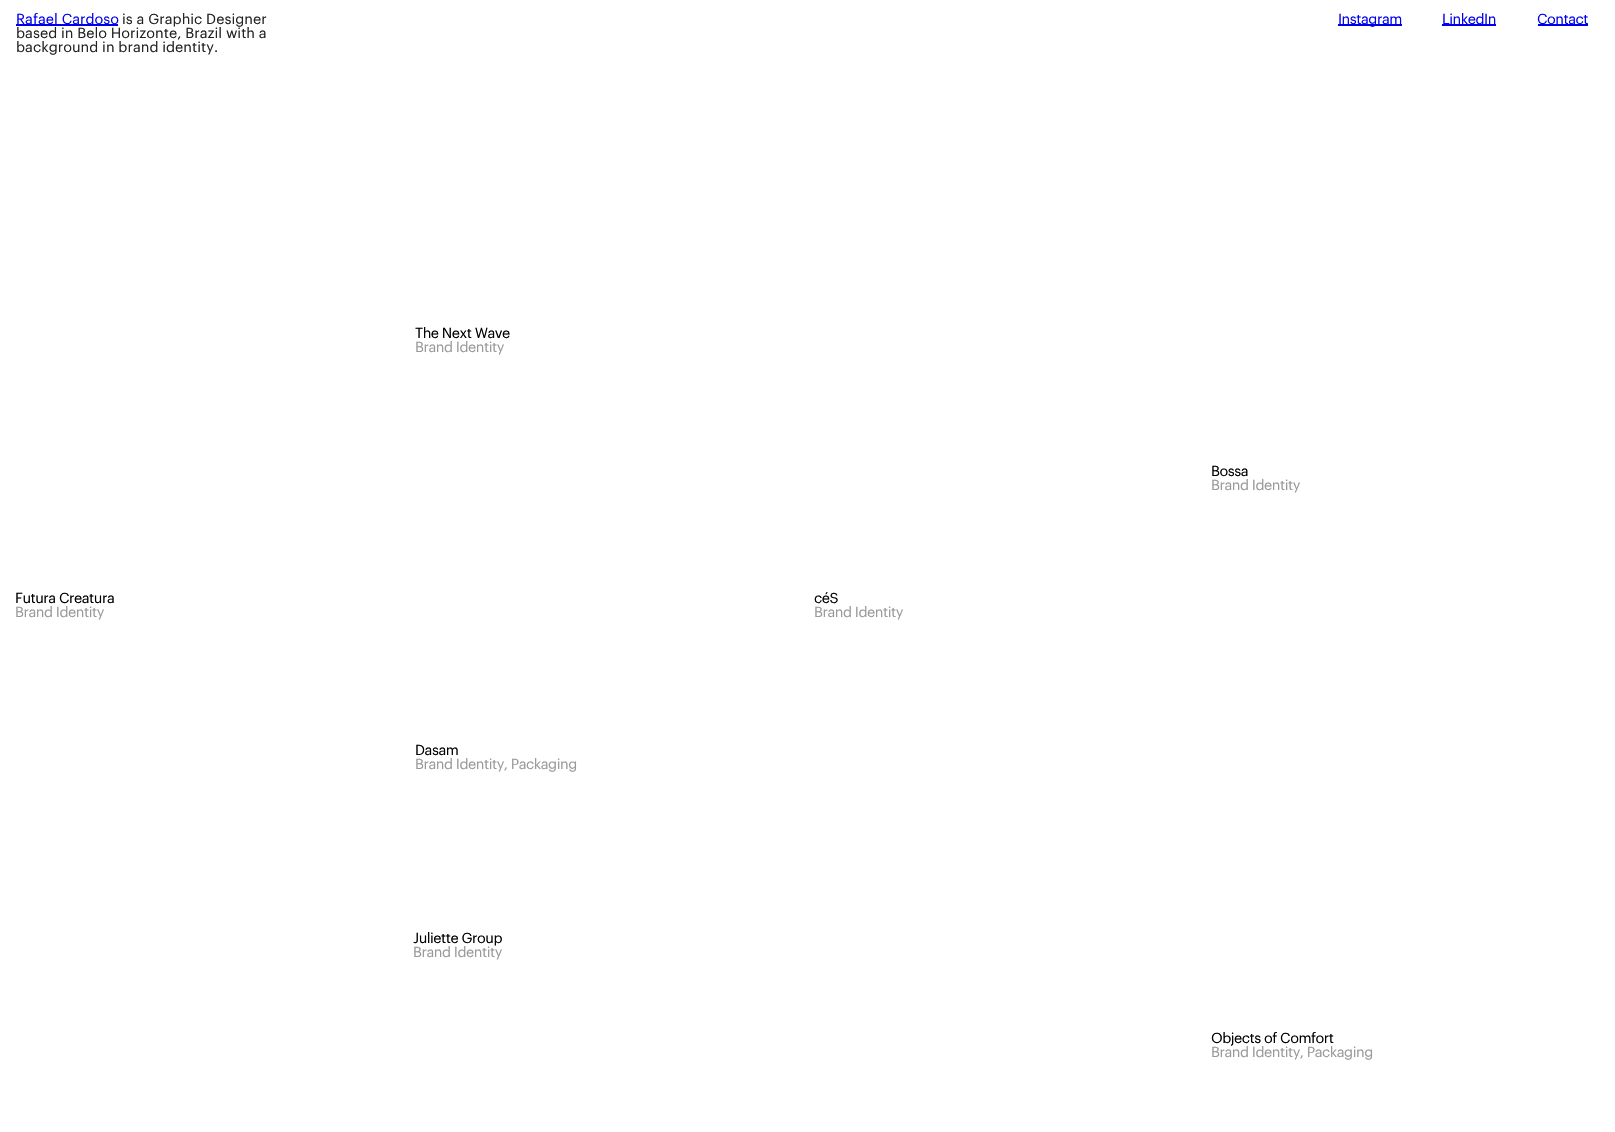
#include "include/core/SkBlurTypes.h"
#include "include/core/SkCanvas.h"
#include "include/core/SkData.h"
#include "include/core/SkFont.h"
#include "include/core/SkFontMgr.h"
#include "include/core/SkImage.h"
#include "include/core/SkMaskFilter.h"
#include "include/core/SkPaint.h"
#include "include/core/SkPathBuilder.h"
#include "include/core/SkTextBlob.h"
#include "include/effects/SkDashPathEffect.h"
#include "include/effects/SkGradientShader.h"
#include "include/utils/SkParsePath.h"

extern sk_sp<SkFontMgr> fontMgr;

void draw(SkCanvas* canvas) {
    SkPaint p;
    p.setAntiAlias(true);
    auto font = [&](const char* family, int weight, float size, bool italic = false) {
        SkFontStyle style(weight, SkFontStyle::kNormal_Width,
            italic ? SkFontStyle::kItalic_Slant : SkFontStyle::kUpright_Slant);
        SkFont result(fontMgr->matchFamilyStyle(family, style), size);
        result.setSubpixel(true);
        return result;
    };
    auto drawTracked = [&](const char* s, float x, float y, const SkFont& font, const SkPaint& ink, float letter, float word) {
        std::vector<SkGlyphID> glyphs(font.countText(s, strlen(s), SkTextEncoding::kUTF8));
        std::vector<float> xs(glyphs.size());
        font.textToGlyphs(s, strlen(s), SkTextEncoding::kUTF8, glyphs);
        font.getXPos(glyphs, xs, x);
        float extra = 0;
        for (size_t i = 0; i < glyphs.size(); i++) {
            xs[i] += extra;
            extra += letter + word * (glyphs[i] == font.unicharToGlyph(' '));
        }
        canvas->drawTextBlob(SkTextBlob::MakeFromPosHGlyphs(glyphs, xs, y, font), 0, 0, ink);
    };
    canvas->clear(0xFFFFFFFF);
    p.setColor(0xFF0000EE);
    canvas->drawRect(SkRect::MakeLTRB(16, 24, 118, 26), p);
    auto font1 = font("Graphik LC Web", 400, 14.2f);
    canvas->drawString("Rafael Cardoso", 16, 24, font1, p);
    p.setColor(0xFF222222);
    {
        const struct { const char* s; float x, y; } items[] = {
            {"is a Graphic Designer", 122, 24},
            {"based in Belo Horizonte, Brazil with a", 16, 38},
            {"background in brand identity.", 16, 52},
        };
        for (auto [s, x, y] : items) {
            canvas->drawString(s, x, y, font1, p);
        }
    }
    p.setColor(0xFF0000EE);
    canvas->drawRect(SkRect::MakeLTRB(1338, 24, 1402, 26), p);
    drawTracked("Instagram", 1338, 24, font1, p, -0.5f, 0);
    canvas->drawRect(SkRect::MakeLTRB(1442, 24, 1496, 26), p);
    drawTracked("LinkedIn", 1442, 24, font1, p, -0.5f, 0);
    canvas->drawRect(SkRect::MakeLTRB(1538, 24, 1588, 26), p);
    drawTracked("Contact", 1537, 24, font1, p, -0.5f, 0);
    p.setColor(0xFF000000);
    drawTracked("The Next Wave", 415, 338, font1, p, -0.5f, 0);
    p.setColor(0xFF999999);
    drawTracked("Brand Identity", 415, 352, font1, p, -0.5f, 0);
    p.setColor(0xFF000000);
    drawTracked("Bossa", 1211, 476, font1, p, -0.5f, 0);
    p.setColor(0xFF999999);
    drawTracked("Brand Identity", 1211, 490, font1, p, -0.5f, 0);
    p.setColor(0xFF000000);
    drawTracked("Futura Creatura", 15, 603, font1, p, -0.5f, 0);
    p.setColor(0xFF999999);
    drawTracked("Brand Identity", 15, 617, font1, p, -0.5f, 0);
    p.setColor(0xFF000000);
    drawTracked("céS", 814, 603, font1, p, -0.5f, 0);
    p.setColor(0xFF999999);
    drawTracked("Brand Identity", 814, 617, font1, p, -0.5f, 0);
    p.setColor(0xFF000000);
    drawTracked("Dasam", 415, 755, font1, p, -0.5f, 0);
    p.setColor(0xFF999999);
    drawTracked("Brand Identity, Packaging", 415, 769, font1, p, -0.5f, 0);
    p.setColor(0xFF000000);
    drawTracked("Juliette Group", 413, 943, font1, p, -0.5f, 0);
    p.setColor(0xFF999999);
    drawTracked("Brand Identity", 413, 957, font1, p, -0.5f, 0);
    p.setColor(0xFF000000);
    drawTracked("Objects of Comfort", 1211, 1043, font1, p, -0.5f, 0);
    p.setColor(0xFF999999);
    drawTracked("Brand Identity, Packaging", 1211, 1057, font1, p, -0.5f, 0);
}
